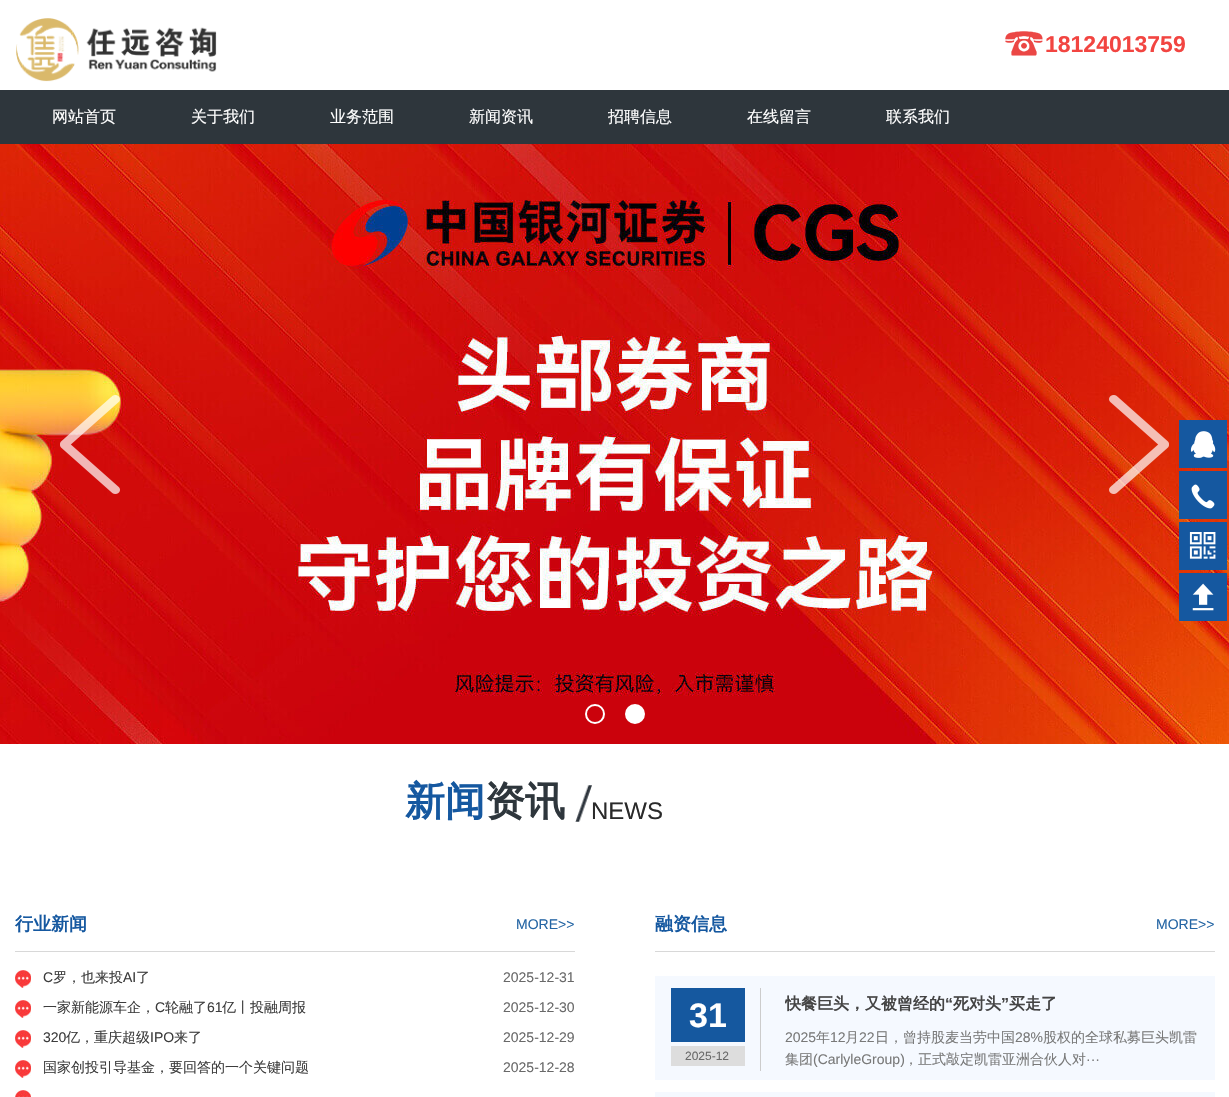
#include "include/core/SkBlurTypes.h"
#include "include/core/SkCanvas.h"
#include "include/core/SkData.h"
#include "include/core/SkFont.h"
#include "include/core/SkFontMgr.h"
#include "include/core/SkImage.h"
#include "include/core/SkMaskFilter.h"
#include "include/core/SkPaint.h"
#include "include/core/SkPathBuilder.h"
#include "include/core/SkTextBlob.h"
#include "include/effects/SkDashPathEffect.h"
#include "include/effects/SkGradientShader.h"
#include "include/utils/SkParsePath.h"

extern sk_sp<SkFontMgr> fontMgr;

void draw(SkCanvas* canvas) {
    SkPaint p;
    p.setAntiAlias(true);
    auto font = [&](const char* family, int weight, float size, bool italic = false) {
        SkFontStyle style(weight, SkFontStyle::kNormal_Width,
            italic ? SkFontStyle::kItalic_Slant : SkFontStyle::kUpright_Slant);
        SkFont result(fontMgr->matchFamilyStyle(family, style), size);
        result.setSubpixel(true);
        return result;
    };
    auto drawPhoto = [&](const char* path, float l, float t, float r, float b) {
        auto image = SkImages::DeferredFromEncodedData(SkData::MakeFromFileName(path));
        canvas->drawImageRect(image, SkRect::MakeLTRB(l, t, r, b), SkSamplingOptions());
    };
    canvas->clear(0xFFFFFFFF);
    drawPhoto("media/1.png", 16, 18, 217, 82);
    drawPhoto("media/2.png", 1005, 31, 1043, 56);
    auto font1 = font("Liberation Sans", 700, 23);
    p.setColor(0xFFF24541);
    canvas->drawString("18124013759", 1045, 52, font1, p);
    p.setColor(0xFF2E363C);
    canvas->drawRect(SkRect::MakeLTRB(0, 90, 1229, 144), p);
    auto font2 = font("WenQuanYi Zen Hei", 500, 16);
    p.setColor(0xFFFFFFFF);
    {
        const struct { const char* s; float x, y; } items[] = {
            {"网站首页", 52, 122},
            {"关于我们", 191, 122},
            {"业务范围", 330, 122},
            {"新闻资讯", 469, 122},
            {"招聘信息", 608, 122},
            {"在线留言", 747, 122},
            {"联系我们", 886, 122},
        };
        for (auto [s, x, y] : items) {
            canvas->drawString(s, x, y, font2, p);
        }
    }
    drawPhoto("media/3.png", 0, 144, 1229, 744);
    drawPhoto("media/4.png", 60, 395, 120, 494);
    drawPhoto("media/5.png", 1109, 395, 1169, 494);
    p.setStyle(SkPaint::kStroke_Style);
    p.setStrokeWidth(2);
    canvas->drawCircle(595, 714, 9, p);
    p.setStyle(SkPaint::kFill_Style);
    canvas->drawCircle(635, 714, 9, p);
    p.setStyle(SkPaint::kStroke_Style);
    canvas->drawCircle(635, 714, 9, p);
    p.setStyle(SkPaint::kFill_Style);
    p.setColor(0xFF1558A0);
    canvas->drawRect(SkRect::MakeLTRB(1179, 420, 1227, 468), p);
    drawPhoto("media/6.png", 1190, 431, 1216, 458);
    canvas->drawRect(SkRect::MakeLTRB(1179, 471, 1227, 519), p);
    drawPhoto("media/7.png", 1191, 484, 1215, 509);
    canvas->drawRect(SkRect::MakeLTRB(1179, 522, 1227, 570), p);
    drawPhoto("media/8.png", 1189, 532, 1216, 559);
    canvas->drawRect(SkRect::MakeLTRB(1179, 573, 1227, 621), p);
    drawPhoto("media/9.png", 1192, 583, 1214, 611);
    auto font3 = font("WenQuanYi Zen Hei", 700, 40);
    canvas->drawString("新闻", 405, 815, font3, p);
    p.setColor(0xFF2E363C);
    canvas->drawString("资讯", 485, 815, font3, p);
    drawPhoto("media/10.png", 575, 785, 592, 822);
    auto font4 = font("Liberation Sans", 400, 24);
    p.setColor(0xFF2A2A2A);
    canvas->drawString("NEWS", 591, 819, font4, p);
    p.setColor(0xFFD8D8D8);
    canvas->drawRect(SkRect::MakeLTRB(15, 951, 575, 952), p);
    auto font5 = font("WenQuanYi Zen Hei", 700, 18);
    p.setColor(0xFF1558A0);
    canvas->drawString("行业新闻", 15, 930, font5, p);
    auto font6 = font("Liberation Sans", 400, 14);
    p.setColor(0xFF2465A4);
    canvas->drawString("MORE>>", 516, 929, font6, p);
    drawPhoto("media/11.png", 15, 970, 31, 988);
    p.setColor(0xFF3D3D3D);
    canvas->drawString("C", 43, 982, font6, p);
    auto font7 = font("WenQuanYi Zen Hei", 500, 14);
    canvas->drawString("罗，也来投", 53, 982, font7, p);
    canvas->drawString("AI", 123, 982, font6, p);
    canvas->drawString("了", 136, 982, font7, p);
    p.setColor(0xFF696969);
    canvas->drawString("2025-12-31", 503, 982, font6, p);
    drawPhoto("media/11.png", 15, 1000, 31, 1018);
    p.setColor(0xFF3D3D3D);
    canvas->drawString("一家新能源车企，", 43, 1012, font7, p);
    canvas->drawString("C", 155, 1012, font6, p);
    canvas->drawString("轮融了", 165, 1012, font7, p);
    canvas->drawString("61", 207, 1012, font6, p);
    canvas->drawString("亿丨投融周报", 222, 1012, font7, p);
    p.setColor(0xFF696969);
    canvas->drawString("2025-12-30", 503, 1012, font6, p);
    drawPhoto("media/11.png", 15, 1030, 31, 1048);
    p.setColor(0xFF3D3D3D);
    canvas->drawString("320", 43, 1042, font6, p);
    canvas->drawString("亿，重庆超级", 66, 1042, font7, p);
    canvas->drawString("IPO", 150, 1042, font6, p);
    canvas->drawString("来了", 174, 1042, font7, p);
    p.setColor(0xFF696969);
    canvas->drawString("2025-12-29", 503, 1042, font6, p);
    drawPhoto("media/11.png", 15, 1060, 31, 1078);
    p.setColor(0xFF3D3D3D);
    canvas->drawString("国家创投引导基金，要回答的一个关键问题", 43, 1072, font7, p);
    p.setColor(0xFF696969);
    canvas->drawString("2025-12-28", 503, 1072, font6, p);
    drawPhoto("media/12.png", 15, 1090, 31, 1097);
    p.setColor(0xFFD8D8D8);
    canvas->drawRect(SkRect::MakeLTRB(655, 951, 1215, 952), p);
    p.setColor(0xFF1558A0);
    canvas->drawString("融资信息", 655, 930, font5, p);
    p.setColor(0xFF2465A4);
    canvas->drawString("MORE>>", 1156, 929, font6, p);
    p.setColor(0xFFF5F9FF);
    canvas->drawRect(SkRect::MakeLTRB(655, 976, 1215, 1080), p);
    p.setColor(0xFF15589F);
    canvas->drawRect(SkRect::MakeLTRB(671, 988, 745, 1042), p);
    auto font8 = font("Liberation Sans", 700, 34);
    p.setColor(0xFFFFFFFF);
    canvas->drawString("31", 689, 1027, font8, p);
    p.setColor(0xFFDDDDDD);
    canvas->drawRect(SkRect::MakeLTRB(671, 1046, 745, 1066), p);
    auto font9 = font("Liberation Sans", 400, 12);
    p.setColor(0xFF696969);
    canvas->drawString("2025-12", 685, 1060, font9, p);
    p.setColor(0xFFCCCCCC);
    canvas->drawRect(SkRect::MakeLTRB(760, 988, 761, 1071), p);
    canvas->save();
    canvas->clipRect(SkRect::MakeLTRB(785, 988, 1201, 1020));
    auto font10 = font("WenQuanYi Zen Hei", 700, 16);
    p.setColor(0xFF444444);
    canvas->drawString("快餐巨头，又被曾经的", 785, 1009, font10, p);
    canvas->restore();
    auto font11 = font("Liberation Sans", 700, 16);
    canvas->drawString("“", 945, 1009, font11, p);
    canvas->drawString("死对头", 953, 1009, font10, p);
    canvas->drawString("”", 1001, 1009, font11, p);
    canvas->drawString("买走了", 1009, 1009, font10, p);
    p.setColor(0xFF797979);
    canvas->drawString("2025", 785, 1042, font6, p);
    canvas->drawString("年", 816, 1042, font7, p);
    canvas->drawString("12", 830, 1042, font6, p);
    canvas->drawString("月", 845, 1042, font7, p);
    canvas->drawString("22", 859, 1042, font6, p);
    canvas->drawString("日，曾持股麦当劳中国", 875, 1042, font7, p);
    canvas->drawString("28%", 1015, 1042, font6, p);
    canvas->drawString("股权的全球私募巨头凯雷", 1043, 1042, font7, p);
    canvas->drawString("集团", 785, 1064, font7, p);
    canvas->drawString("(CarlyleGroup)", 813, 1064, font6, p);
    canvas->drawString("，正式敲定凯雷亚洲合伙人对", 904, 1064, font7, p);
    canvas->drawString("···", 1086, 1064, font6, p);
    p.setColor(0xFFF5F9FF);
    canvas->drawRect(SkRect::MakeLTRB(655, 1092, 1215, 1097), p);
}
